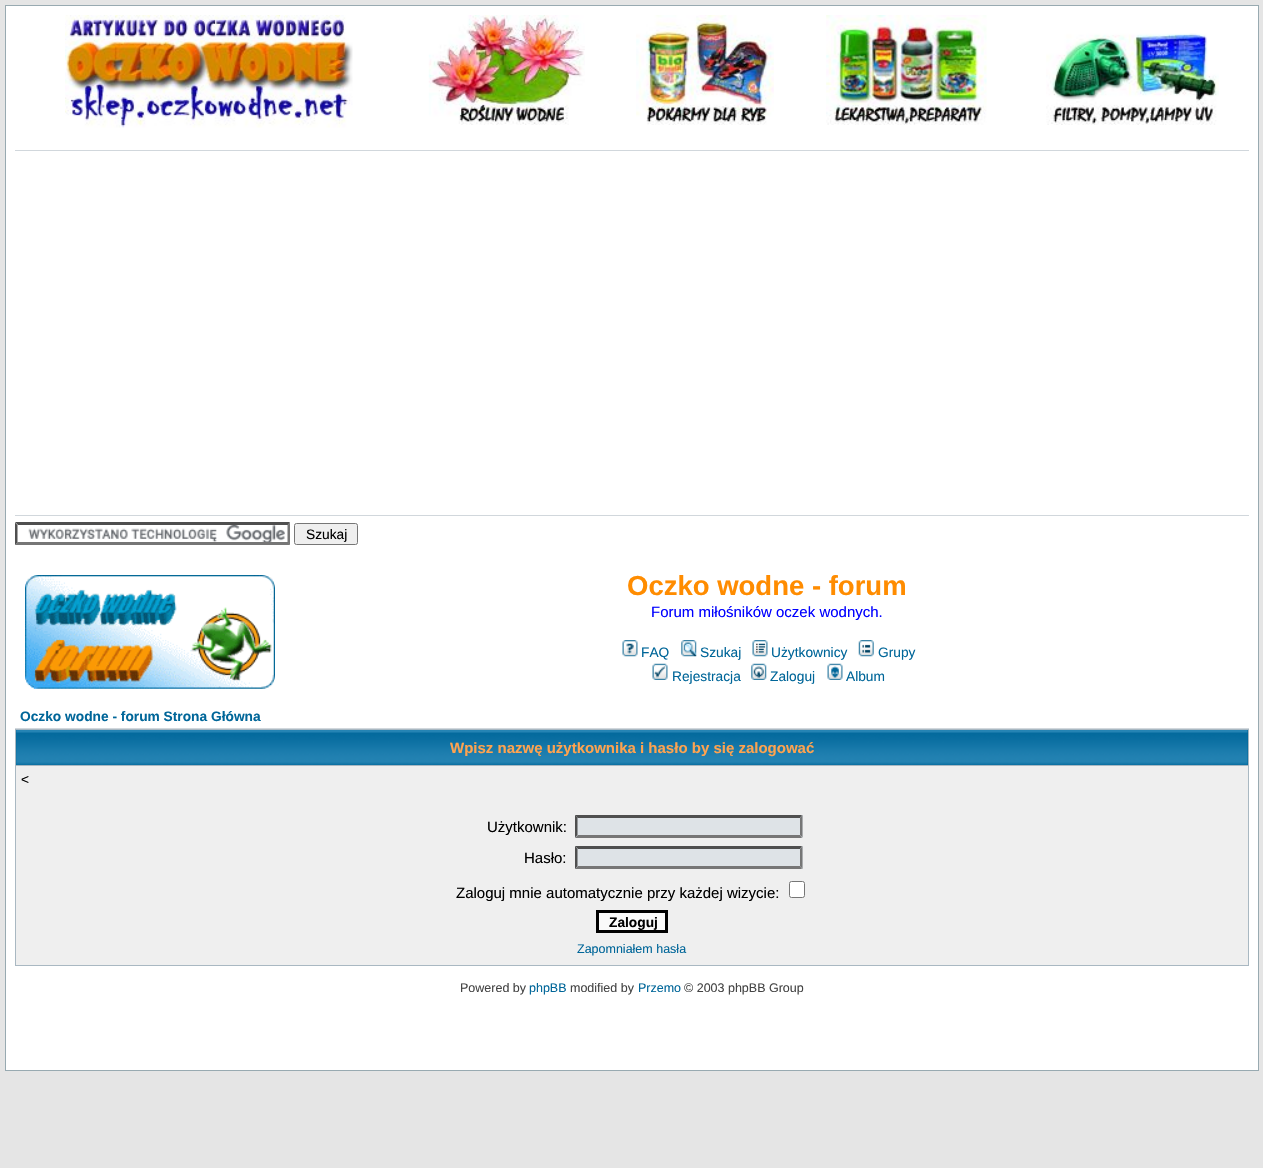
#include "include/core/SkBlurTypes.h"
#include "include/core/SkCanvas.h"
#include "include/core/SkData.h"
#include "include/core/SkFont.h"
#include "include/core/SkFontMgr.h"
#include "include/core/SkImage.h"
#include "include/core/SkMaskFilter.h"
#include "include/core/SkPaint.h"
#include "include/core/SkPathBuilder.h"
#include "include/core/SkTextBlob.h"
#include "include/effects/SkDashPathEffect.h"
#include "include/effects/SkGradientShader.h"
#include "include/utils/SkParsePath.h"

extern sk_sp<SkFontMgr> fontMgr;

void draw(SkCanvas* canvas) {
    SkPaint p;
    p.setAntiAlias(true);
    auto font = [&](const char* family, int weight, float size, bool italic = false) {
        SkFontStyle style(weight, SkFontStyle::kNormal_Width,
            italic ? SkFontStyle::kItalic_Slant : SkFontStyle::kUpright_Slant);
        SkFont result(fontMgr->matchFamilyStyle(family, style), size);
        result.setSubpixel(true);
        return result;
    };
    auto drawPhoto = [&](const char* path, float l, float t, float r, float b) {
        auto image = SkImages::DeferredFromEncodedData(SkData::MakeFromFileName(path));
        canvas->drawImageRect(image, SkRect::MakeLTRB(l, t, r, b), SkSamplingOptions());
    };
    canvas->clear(0xFFE5E5E5);
    p.setColor(0xFFFFFFFF);
    canvas->drawRect(SkRect::MakeLTRB(5.5f, 5.5f, 1258.5f, 1070.5f), p);
    p.setStyle(SkPaint::kStroke_Style);
    p.setStrokeWidth(1);
    p.setColor(0xFF98AAB1);
    canvas->drawRect(SkRect::MakeLTRB(5.5f, 5.5f, 1258.5f, 1070.5f), p);
    drawPhoto("media/1.png", 65, 15, 353, 128);
    drawPhoto("media/2.png", 428, 15, 585, 125);
    drawPhoto("media/3.png", 636, 15, 774, 125);
    drawPhoto("media/4.png", 826, 15, 987, 125);
    drawPhoto("media/5.png", 1046, 33, 1219, 125);
    p.setStyle(SkPaint::kFill_Style);
    p.setColor(0xFFD1D7DC);
    canvas->drawRect(SkRect::MakeLTRB(15, 150, 1249, 151), p);
    canvas->drawRect(SkRect::MakeLTRB(15, 515, 1249, 516), p);
    drawPhoto("media/6.png", 28, 525, 285, 542);
    p.setColor(0xFF4F4F4F);
    canvas->drawPath(SkPathBuilder().moveTo(15, 522).lineTo(290, 522).lineTo(288, 525).lineTo(18, 525).close().detach(), p);
    p.setColor(0xFF767676);
    canvas->drawPath(SkPathBuilder().moveTo(290, 522.5f).lineTo(290, 545).lineTo(287.5f, 542.5f).lineTo(287.5f, 525).close().detach(), p);
    canvas->drawPath(SkPathBuilder().moveTo(290, 545).lineTo(15, 545).lineTo(18, 542).lineTo(288, 542).close().detach(), p);
    p.setColor(0xFF4F4F4F);
    canvas->drawPath(SkPathBuilder().moveTo(15, 545).lineTo(15, 522.5f).lineTo(17.5f, 525).lineTo(17.5f, 542.5f).close().detach(), p);
    p.setColor(0xFFEFEFEF);
    canvas->drawRoundRect(SkRect::MakeLTRB(294.5f, 523.5f, 357.5f, 544.5f), 2, 2, p);
    p.setStyle(SkPaint::kStroke_Style);
    p.setColor(0xFF767676);
    canvas->drawRoundRect(SkRect::MakeLTRB(294.5f, 523.5f, 357.5f, 544.5f), 2, 2, p);
    auto font1 = font("Liberation Sans", 400, 13.75f);
    p.setStyle(SkPaint::kFill_Style);
    p.setColor(0xFF000000);
    canvas->drawString("Szukaj", 306, 539, font1, p);
    drawPhoto("media/7.png", 25, 575, 275, 689);
    auto font2 = font("Liberation Sans", 700, 27.5f);
    p.setColor(0xFFFF8C00);
    canvas->drawString("Oczko wodne - forum", 627, 595, font2, p);
    auto font3 = font("Liberation Sans", 400, 15);
    p.setColor(0xFF0000FF);
    canvas->drawString("Forum miłośników oczek wodnych.", 651, 617, font3, p);
    drawPhoto("media/8.png", 622, 640, 638, 657);
    p.setColor(0xFF006699);
    canvas->drawString("FAQ", 641, 657, font1, p);
    drawPhoto("media/9.png", 681, 640, 697, 657);
    canvas->drawString("Szukaj", 700, 657, font1, p);
    drawPhoto("media/10.png", 752, 640, 768, 657);
    canvas->drawString("Użytkownicy", 771, 657, font1, p);
    drawPhoto("media/11.png", 858, 640, 874, 657);
    canvas->drawString("Grupy", 878, 657, font1, p);
    drawPhoto("media/12.png", 652, 663, 668, 680);
    canvas->drawString("Rejestracja", 672, 681, font1, p);
    drawPhoto("media/13.png", 751, 663, 767, 680);
    canvas->drawString("Zaloguj", 770, 681, font1, p);
    drawPhoto("media/14.png", 827, 663, 843, 680);
    canvas->drawString("Album", 846, 681, font1, p);
    auto font4 = font("Liberation Sans", 700, 13.75f);
    canvas->drawString("Oczko wodne - forum Strona Główna", 20, 721, font4, p);
    {
        const struct { float l, t, r, b; SkColor color; } items[] = {
            {15, 729, 1249, 966, 0xFFA9B8C2},
            {15, 728, 1249, 729, 0xFFD1D7DC},
            {16, 730, 1248, 765, 0xFF006699},
        };
        for (auto [l, t, r, b, color] : items) {
            p.setColor(color);
            canvas->drawRect(SkRect::MakeLTRB(l, t, r, b), p);
        }
    }
    drawPhoto("media/15.png", 16, 730, 1248, 765);
    auto font5 = font("Liberation Sans", 700, 15);
    p.setColor(0xFFFFA34F);
    canvas->drawString("Wpisz nazwę użytkownika i hasło by się zalogować", 450, 753, font5, p);
    p.setColor(0xFFEFEFEF);
    canvas->drawRect(SkRect::MakeLTRB(16, 766, 1248, 965), p);
    p.setColor(0xFF000000);
    canvas->drawString("<", 21, 784, font1, p);
    canvas->drawString("Użytkownik:", 487, 832, font3, p);
    p.setColor(0xFFDEE3E7);
    canvas->drawRect(SkRect::MakeLTRB(575, 815, 803, 838), p);
    p.setColor(0xFF4F4F4F);
    canvas->drawPath(SkPathBuilder().moveTo(575, 815).lineTo(802, 815).lineTo(800, 818).lineTo(578, 818).close().detach(), p);
    p.setColor(0xFF767676);
    canvas->drawPath(SkPathBuilder().moveTo(802.5f, 815).lineTo(802.5f, 837.5f).lineTo(800, 835).lineTo(800, 817.5f).close().detach(), p);
    canvas->drawPath(SkPathBuilder().moveTo(802, 838).lineTo(575, 838).lineTo(578, 835).lineTo(800, 835).close().detach(), p);
    p.setColor(0xFF4F4F4F);
    canvas->drawPath(SkPathBuilder().moveTo(575, 837.5f).lineTo(575, 815).lineTo(577.5f, 817.5f).lineTo(577.5f, 835).close().detach(), p);
    p.setColor(0xFF000000);
    canvas->drawString("Hasło:", 524, 863, font3, p);
    p.setColor(0xFFDEE3E7);
    canvas->drawRect(SkRect::MakeLTRB(575, 846, 803, 869), p);
    p.setColor(0xFF4F4F4F);
    canvas->drawPath(SkPathBuilder().moveTo(575, 846).lineTo(802, 846).lineTo(800, 849).lineTo(578, 849).close().detach(), p);
    p.setColor(0xFF767676);
    canvas->drawPath(SkPathBuilder().moveTo(802.5f, 846).lineTo(802.5f, 869).lineTo(800, 866).lineTo(800, 849).close().detach(), p);
    canvas->drawPath(SkPathBuilder().moveTo(802, 869).lineTo(575, 869).lineTo(578, 866).lineTo(800, 866).close().detach(), p);
    p.setColor(0xFF4F4F4F);
    canvas->drawPath(SkPathBuilder().moveTo(575, 869).lineTo(575, 846).lineTo(577.5f, 849).lineTo(577.5f, 866).close().detach(), p);
    p.setColor(0xFF000000);
    canvas->drawString("Zaloguj mnie automatycznie przy każdej wizycie:", 456, 898, font3, p);
    p.setColor(0xFFFFFFFF);
    canvas->drawRoundRect(SkRect::MakeLTRB(789.5f, 881.5f, 804.5f, 897.5f), 2, 2, p);
    p.setStyle(SkPaint::kStroke_Style);
    p.setColor(0xFF767676);
    canvas->drawRoundRect(SkRect::MakeLTRB(789.5f, 881.5f, 804.5f, 897.5f), 2, 2, p);
    p.setStyle(SkPaint::kFill_Style);
    p.setColor(0xFFFAFAFA);
    canvas->drawRect(SkRect::MakeLTRB(597.5f, 911.5f, 666.5f, 931.5f), p);
    p.setStyle(SkPaint::kStroke_Style);
    p.setStrokeWidth(3);
    p.setColor(0xFF000000);
    canvas->drawRect(SkRect::MakeLTRB(597.5f, 911.5f, 666.5f, 931.5f), p);
    p.setStyle(SkPaint::kFill_Style);
    canvas->drawString("Zaloguj", 609, 927, font4, p);
    auto font6 = font("Liberation Sans", 400, 12.5f);
    p.setColor(0xFF006699);
    canvas->drawString("Zapomniałem hasła", 577, 953, font6, p);
    p.setColor(0xFF444444);
    canvas->drawString("Powered by", 460, 992, font6, p);
    p.setColor(0xFF006699);
    canvas->drawString("phpBB", 529, 992, font6, p);
    p.setColor(0xFF444444);
    canvas->drawString("modified by", 570, 992, font6, p);
    p.setColor(0xFF006699);
    canvas->drawString("Przemo", 638, 992, font6, p);
    p.setColor(0xFF444444);
    canvas->drawString("© 2003 phpBB Group", 684, 992, font6, p);
}
